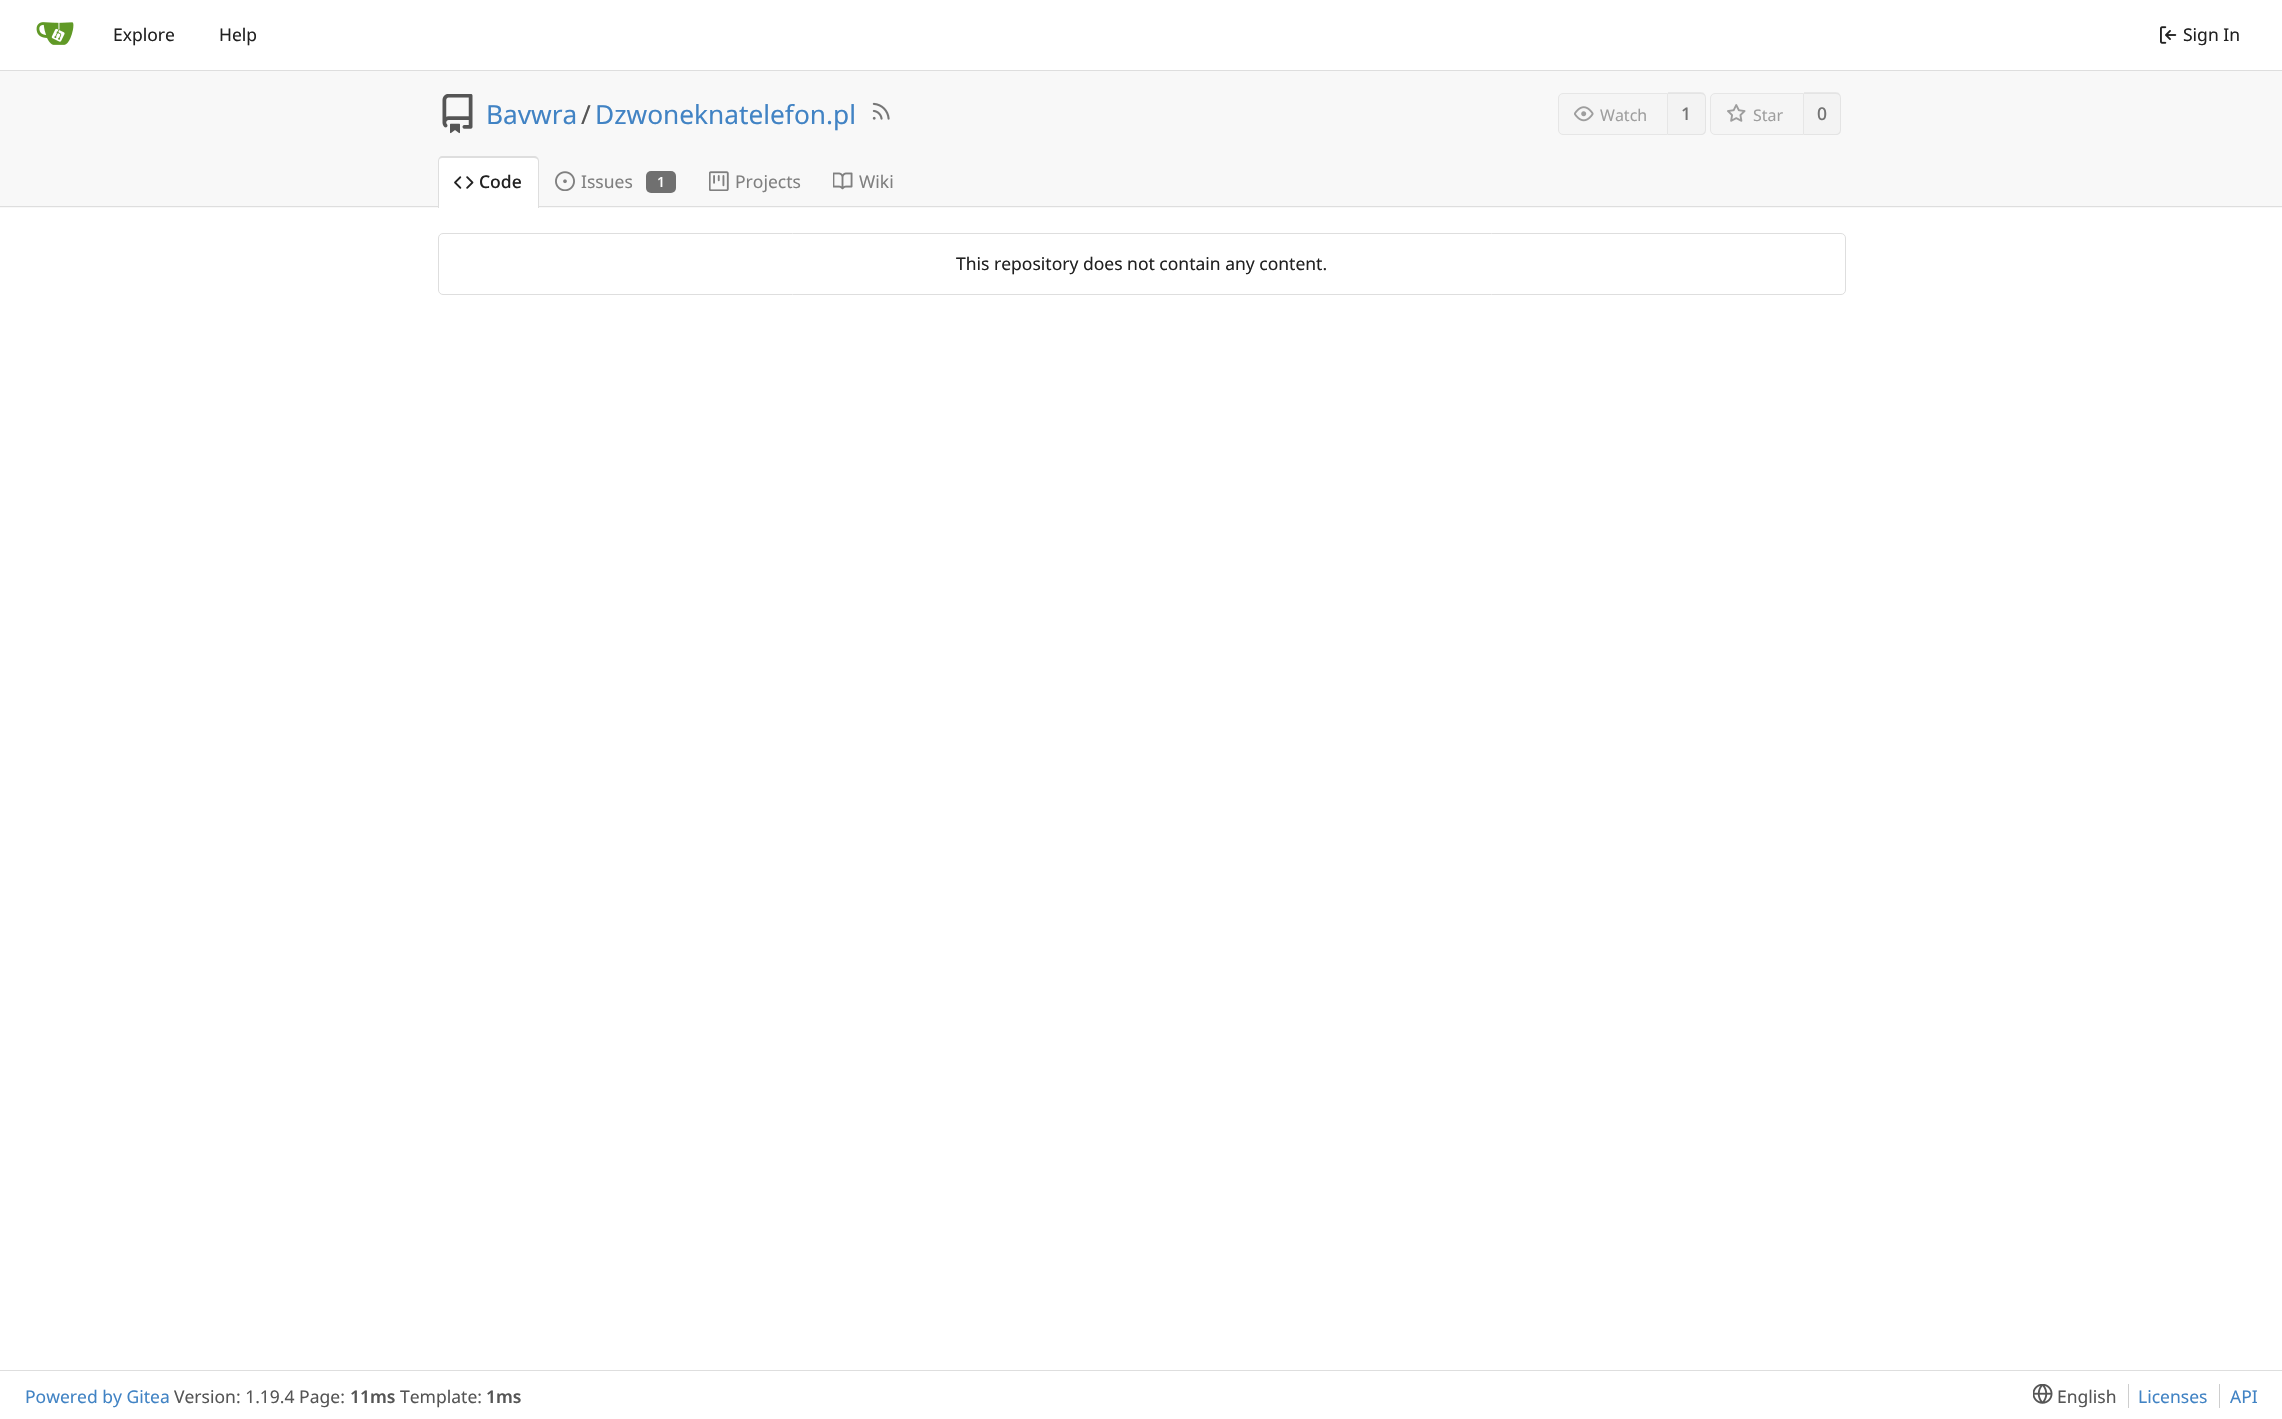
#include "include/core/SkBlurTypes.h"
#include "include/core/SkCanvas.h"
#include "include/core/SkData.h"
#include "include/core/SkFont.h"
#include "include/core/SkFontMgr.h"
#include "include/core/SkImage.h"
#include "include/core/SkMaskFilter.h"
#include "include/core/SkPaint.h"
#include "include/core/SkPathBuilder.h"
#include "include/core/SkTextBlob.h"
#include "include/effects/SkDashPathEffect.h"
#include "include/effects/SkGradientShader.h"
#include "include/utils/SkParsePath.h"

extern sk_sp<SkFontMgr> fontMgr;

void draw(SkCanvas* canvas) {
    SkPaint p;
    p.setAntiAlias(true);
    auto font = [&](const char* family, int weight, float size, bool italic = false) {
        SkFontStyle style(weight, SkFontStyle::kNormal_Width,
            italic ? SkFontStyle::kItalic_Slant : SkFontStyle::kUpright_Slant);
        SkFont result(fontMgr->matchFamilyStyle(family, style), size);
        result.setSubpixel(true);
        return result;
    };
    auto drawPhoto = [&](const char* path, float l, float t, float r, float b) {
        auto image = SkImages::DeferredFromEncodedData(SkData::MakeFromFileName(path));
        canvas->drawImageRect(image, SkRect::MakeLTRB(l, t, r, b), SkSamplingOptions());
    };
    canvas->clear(0xFFFFFFFF);
    p.setColor(0xFFDEDEDE);
    canvas->drawRect(SkRect::MakeLTRB(0, 70, 2282, 71), p);
    drawPhoto("media/1.png", 36, 22, 74, 45);
    auto font1 = font("Noto Sans", 400, 17.5f);
    p.setColor(0xFF212121);
    canvas->drawString("Explore", 113, 41, font1, p);
    canvas->drawString("Help", 219, 41, font1, p);
    drawPhoto("media/2.png", 2160, 26, 2177, 44);
    canvas->drawString("Sign In", 2183, 41, font1, p);
    p.setColor(0xFFF8F8F8);
    canvas->drawRect(SkRect::MakeLTRB(0, 71, 2282, 208), p);
    drawPhoto("media/3.png", 442, 94, 473, 134);
    auto font2 = font("Noto Sans", 400, 26.25f);
    p.setColor(0xFF4183C4);
    canvas->drawString("Bavwra", 486, 124, font2, p);
    p.setColor(0xFF555555);
    canvas->drawString("/", 581, 124, font2, p);
    p.setColor(0xFF4183C4);
    canvas->drawString("Dzwoneknatelefon.pl", 595, 124, font2, p);
    drawPhoto("media/4.png", 872, 102, 890, 120);
    p.setColor(0xFFF5F5F5);
    canvas->drawPath(SkPathBuilder().moveTo(1563, 93.5f).lineTo(1667.5f, 93.5f).lineTo(1667.5f, 134.5f).lineTo(1563, 134.5f).cubicTo(1560.5f, 134.5f, 1558.5f, 132.5f, 1558.5f, 130).lineTo(1558.5f, 98).cubicTo(1558.5f, 95.5f, 1560.5f, 93.5f, 1563, 93.5f).close().detach(), p);
    p.setStyle(SkPaint::kStroke_Style);
    p.setStrokeWidth(1);
    p.setColor(0xFFE6E6E6);
    canvas->drawPath(SkPathBuilder().moveTo(1563, 93.5f).lineTo(1667.5f, 93.5f).lineTo(1667.5f, 134.5f).lineTo(1563, 134.5f).cubicTo(1560.5f, 134.5f, 1558.5f, 132.5f, 1558.5f, 130).lineTo(1558.5f, 98).cubicTo(1558.5f, 95.5f, 1560.5f, 93.5f, 1563, 93.5f).close().detach(), p);
    drawPhoto("media/5.png", 1574, 106, 1594, 122);
    auto font3 = font("Noto Sans", 400, 16);
    p.setStyle(SkPaint::kFill_Style);
    p.setColor(0xFF9E9E9E);
    canvas->drawString("Watch", 1600, 121, font3, p);
    p.setColor(0xFFF3F3F3);
    canvas->drawPath(SkPathBuilder().moveTo(1668, 93).lineTo(1701, 93).cubicTo(1704, 93, 1706, 95, 1706, 98).lineTo(1706, 130).cubicTo(1706, 133, 1704, 135, 1701, 135).lineTo(1668, 135).close().detach(), p);
    p.setColor(0x1C707070);
    canvas->drawPath(SkPathBuilder(SkPathFillType::kEvenOdd).moveTo(1668, 92).lineTo(1701, 92).cubicTo(1704, 92, 1706, 95, 1706, 98).lineTo(1706, 130).cubicTo(1706, 133, 1704, 135, 1701, 135).lineTo(1668, 135).close().moveTo(1668, 94).lineTo(1701, 94).cubicTo(1703, 94, 1705, 95, 1705, 98).lineTo(1705, 130).cubicTo(1705, 132, 1703, 134, 1701, 134).lineTo(1668, 134).close().detach(), p);
    auto font4 = font("Noto Sans", 500, 17.5f);
    p.setColor(0xFF747474);
    canvas->drawString("1", 1681, 120, font4, p);
    p.setColor(0xFFF5F5F5);
    canvas->drawPath(SkPathBuilder().moveTo(1715, 93.5f).lineTo(1803.5f, 93.5f).lineTo(1803.5f, 134.5f).lineTo(1715, 134.5f).cubicTo(1712.5f, 134.5f, 1710.5f, 132.5f, 1710.5f, 130).lineTo(1710.5f, 98).cubicTo(1710.5f, 95.5f, 1712.5f, 93.5f, 1715, 93.5f).close().detach(), p);
    p.setStyle(SkPaint::kStroke_Style);
    p.setColor(0xFFE6E6E6);
    canvas->drawPath(SkPathBuilder().moveTo(1715, 93.5f).lineTo(1803.5f, 93.5f).lineTo(1803.5f, 134.5f).lineTo(1715, 134.5f).cubicTo(1712.5f, 134.5f, 1710.5f, 132.5f, 1710.5f, 130).lineTo(1710.5f, 98).cubicTo(1710.5f, 95.5f, 1712.5f, 93.5f, 1715, 93.5f).close().detach(), p);
    drawPhoto("media/6.png", 1727, 104, 1746, 122);
    p.setStyle(SkPaint::kFill_Style);
    p.setColor(0xFF9E9E9E);
    canvas->drawString("Star", 1753, 121, font3, p);
    p.setColor(0xFFF3F3F3);
    canvas->drawPath(SkPathBuilder().moveTo(1804, 93).lineTo(1836, 93).cubicTo(1839, 93, 1841, 95, 1841, 98).lineTo(1841, 130).cubicTo(1841, 133, 1839, 135, 1836, 135).lineTo(1804, 135).close().detach(), p);
    p.setColor(0x1C707070);
    canvas->drawPath(SkPathBuilder(SkPathFillType::kEvenOdd).moveTo(1804, 92).lineTo(1836, 92).cubicTo(1839, 92, 1841, 95, 1841, 98).lineTo(1841, 130).cubicTo(1841, 133, 1839, 135, 1836, 135).lineTo(1804, 135).close().moveTo(1804, 94).lineTo(1836, 94).cubicTo(1838, 94, 1840, 95, 1840, 98).lineTo(1840, 130).cubicTo(1840, 132, 1838, 134, 1836, 134).lineTo(1804, 134).close().detach(), p);
    p.setColor(0xFF747474);
    canvas->drawString("0", 1817, 120, font4, p);
    p.setColor(0xFFDEDEDE);
    canvas->drawRect(SkRect::MakeLTRB(0, 206, 2282, 207), p);
    p.setColor(0xFFFFFFFF);
    canvas->drawPath(SkPathBuilder().moveTo(443, 156).lineTo(534, 156).cubicTo(537, 156, 539, 158, 539, 161).lineTo(539, 208).lineTo(438, 208).lineTo(438, 161).cubicTo(438, 158, 440, 156, 443, 156).close().detach(), p);
    p.setColor(0xFFDEDEDE);
    canvas->drawPath(SkPathBuilder(SkPathFillType::kEvenOdd).moveTo(442, 156).lineTo(534, 156).cubicTo(537, 156, 539, 158, 539, 161).lineTo(539, 208).lineTo(438, 208).lineTo(438, 161).cubicTo(438, 158, 440, 156, 442, 156).close().moveTo(442, 158).lineTo(534, 158).cubicTo(536, 158, 538, 159, 538, 161).lineTo(538, 208).lineTo(439, 208).lineTo(439, 161).cubicTo(439, 159, 440, 158, 442, 158).close().detach(), p);
    drawPhoto("media/7.png", 454, 176, 474, 189);
    p.setColor(0xFF212121);
    canvas->drawString("Code", 479, 188, font4, p);
    drawPhoto("media/8.png", 555, 171, 575, 191);
    p.setColor(0xFF808080);
    canvas->drawString("Issues", 581, 188, font1, p);
    p.setColor(0xFF707070);
    canvas->drawRoundRect(SkRect::MakeLTRB(646, 171, 676, 193), 5, 5, p);
    auto font5 = font("Noto Sans", 500, 14);
    p.setColor(0xFFFFFFFF);
    canvas->drawString("1", 657, 187, font5, p);
    drawPhoto("media/9.png", 709, 171, 729, 191);
    p.setColor(0xFF808080);
    canvas->drawString("Projects", 735, 188, font1, p);
    drawPhoto("media/10.png", 833, 172, 853, 190);
    canvas->drawString("Wiki", 859, 188, font1, p);
    p.setStyle(SkPaint::kStroke_Style);
    p.setColor(0xFFDEDEDE);
    canvas->drawRoundRect(SkRect::MakeLTRB(438.5f, 233.5f, 1845.5f, 294.5f), 4.5f, 4.5f, p);
    p.setStyle(SkPaint::kFill_Style);
    p.setColor(0xFF212121);
    canvas->drawString("This repository does not contain any content.", 956, 270, font1, p);
    p.setColor(0xFFDEDEDE);
    canvas->drawRect(SkRect::MakeLTRB(0, 1370, 2282, 1371), p);
    p.setColor(0xFF4183C4);
    canvas->drawString("Powered by Gitea", 25, 1403, font1, p);
    p.setColor(0xFF555555);
    canvas->drawString("Version: 1.19.4 Page:", 174, 1403, font1, p);
    auto font6 = font("Noto Sans", 600, 17.5f);
    canvas->drawString("11ms", 350, 1403, font6, p);
    canvas->drawString("Template:", 400, 1403, font1, p);
    canvas->drawString("1ms", 486, 1403, font6, p);
    drawPhoto("media/11.png", 2033, 1384, 2053, 1404);
    canvas->drawString("English", 2057, 1403, font1, p);
    p.setColor(0xFF4183C4);
    canvas->drawString("Licenses", 2138, 1403, font1, p);
    p.setColor(0xFFCECECE);
    canvas->drawRect(SkRect::MakeLTRB(2128, 1384, 2129, 1408), p);
    p.setColor(0xFF4183C4);
    canvas->drawString("API", 2230, 1403, font1, p);
    p.setColor(0xFFCECECE);
    canvas->drawRect(SkRect::MakeLTRB(2219, 1384, 2220, 1408), p);
}
